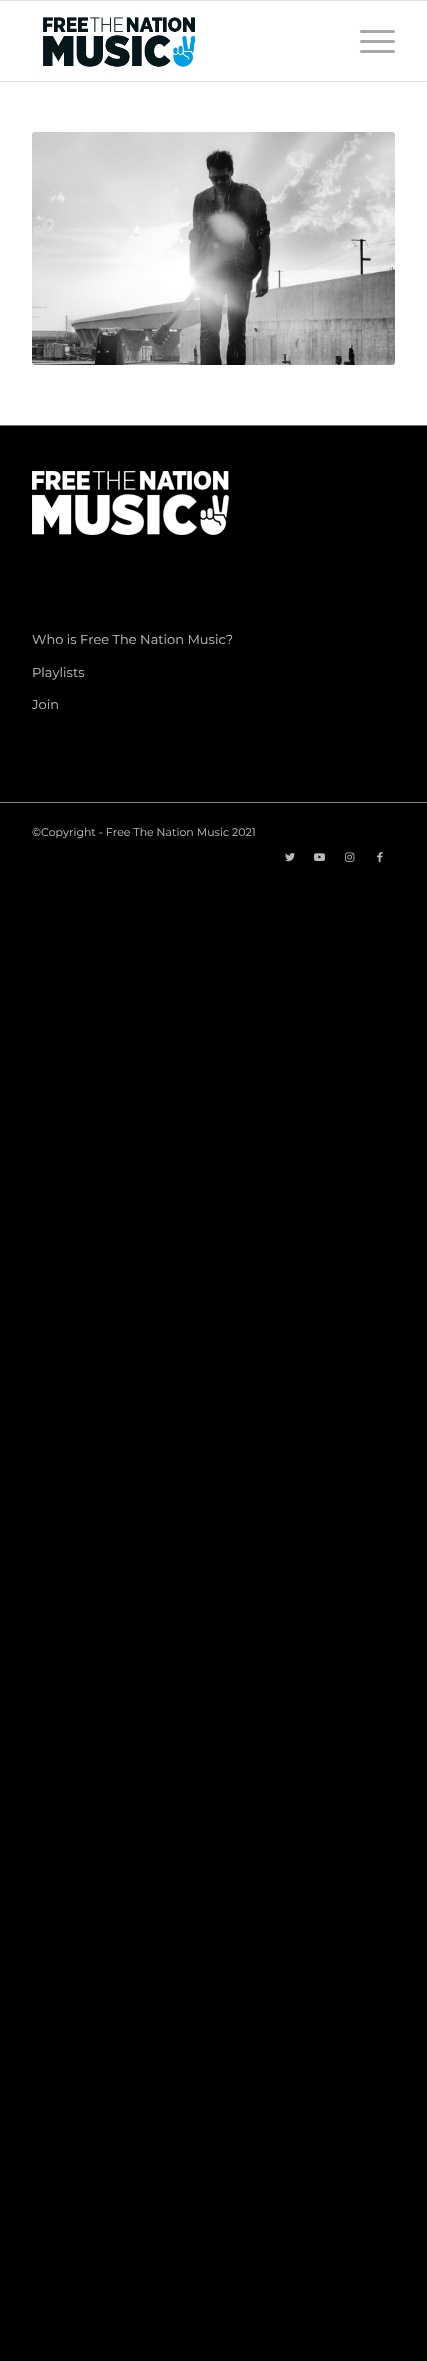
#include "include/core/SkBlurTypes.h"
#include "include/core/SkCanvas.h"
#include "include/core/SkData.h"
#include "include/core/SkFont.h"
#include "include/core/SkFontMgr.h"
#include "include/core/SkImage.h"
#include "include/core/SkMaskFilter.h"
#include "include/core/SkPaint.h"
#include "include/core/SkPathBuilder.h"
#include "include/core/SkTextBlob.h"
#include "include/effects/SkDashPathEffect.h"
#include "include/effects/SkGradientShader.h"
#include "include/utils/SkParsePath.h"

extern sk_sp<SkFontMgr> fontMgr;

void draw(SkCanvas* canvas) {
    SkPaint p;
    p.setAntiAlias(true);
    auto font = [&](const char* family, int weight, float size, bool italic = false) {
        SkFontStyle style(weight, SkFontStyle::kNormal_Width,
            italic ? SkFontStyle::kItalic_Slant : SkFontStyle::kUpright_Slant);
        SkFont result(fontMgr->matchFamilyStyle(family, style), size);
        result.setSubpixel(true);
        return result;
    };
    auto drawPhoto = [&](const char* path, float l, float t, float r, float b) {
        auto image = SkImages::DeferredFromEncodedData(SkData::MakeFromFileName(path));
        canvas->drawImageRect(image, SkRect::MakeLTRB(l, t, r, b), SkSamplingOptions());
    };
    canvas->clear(0xFF000000);
    {
        const struct { float l, t, r, b; SkColor color; } items[] = {
            {0, 0, 427, 1, 0xFFE1E1E1},
            {0, 81, 427, 82, 0xFFE1E1E1},
            {0, 1, 427, 81, 0xFFFFFFFF},
        };
        for (auto [l, t, r, b, color] : items) {
            p.setColor(color);
            canvas->drawRect(SkRect::MakeLTRB(l, t, r, b), p);
        }
    }
    drawPhoto("media/1.png", 43, 17, 196, 67);
    p.setColor(0xFFA8A8A8);
    canvas->drawRoundRect(SkRect::MakeLTRB(360, 40, 395, 43), 1.5f, 1.5f, p);
    canvas->drawRoundRect(SkRect::MakeLTRB(360, 30, 395, 33), 1.5f, 1.5f, p);
    canvas->drawRoundRect(SkRect::MakeLTRB(360, 50, 395, 53), 1.5f, 1.5f, p);
    p.setColor(0xFFFFFFFF);
    canvas->drawRect(SkRect::MakeLTRB(0, 82, 427, 425), p);
    drawPhoto("media/2.png", 32, 132, 395, 365);
    p.setColor(0xFF6E6E6E);
    canvas->drawRect(SkRect::MakeLTRB(0, 425, 427, 426), p);
    drawPhoto("media/3.png", 32, 471, 229, 535);
    auto font1 = font("Montserrat", 100, 13);
    p.setColor(0xFFBABABA);
    {
        const struct { const char* s; float x, y; } items[] = {
            {"Who is Free The Nation Music?", 32, 644},
            {"Playlists", 32, 677},
            {"Join", 32, 709},
        };
        for (auto [s, x, y] : items) {
            canvas->drawString(s, x, y, font1, p);
        }
    }
    p.setColor(0xFF858585);
    canvas->drawRect(SkRect::MakeLTRB(0, 802, 427, 803), p);
    auto font2 = font("Montserrat", 100, 11);
    p.setColor(0xFFBABABA);
    canvas->drawString("©Copyright - Free The Nation Music 2021", 32, 836, font2, p);
    drawPhoto("media/4.png", 285, 853, 295, 862);
    drawPhoto("media/5.png", 314, 853, 325, 861);
    drawPhoto("media/6.png", 345, 852, 355, 862);
    drawPhoto("media/7.png", 377, 852, 383, 863);
}
